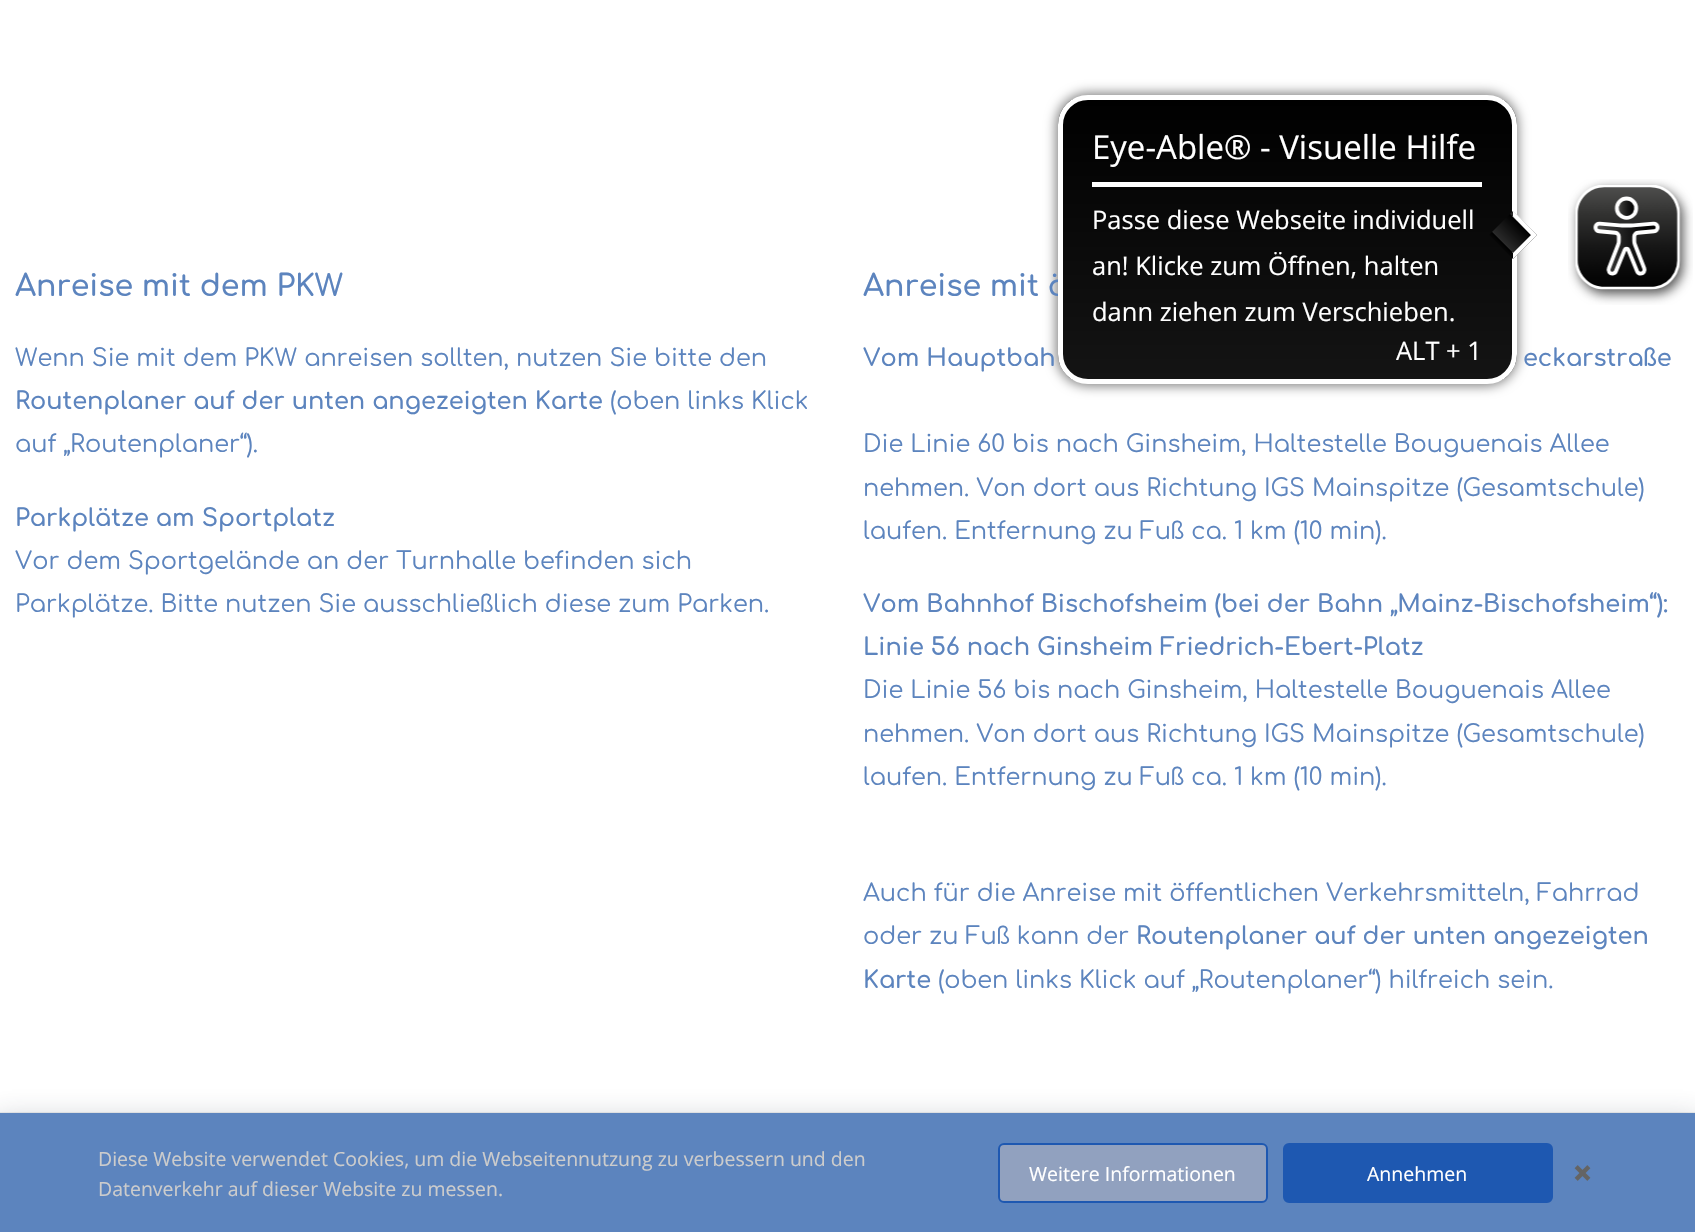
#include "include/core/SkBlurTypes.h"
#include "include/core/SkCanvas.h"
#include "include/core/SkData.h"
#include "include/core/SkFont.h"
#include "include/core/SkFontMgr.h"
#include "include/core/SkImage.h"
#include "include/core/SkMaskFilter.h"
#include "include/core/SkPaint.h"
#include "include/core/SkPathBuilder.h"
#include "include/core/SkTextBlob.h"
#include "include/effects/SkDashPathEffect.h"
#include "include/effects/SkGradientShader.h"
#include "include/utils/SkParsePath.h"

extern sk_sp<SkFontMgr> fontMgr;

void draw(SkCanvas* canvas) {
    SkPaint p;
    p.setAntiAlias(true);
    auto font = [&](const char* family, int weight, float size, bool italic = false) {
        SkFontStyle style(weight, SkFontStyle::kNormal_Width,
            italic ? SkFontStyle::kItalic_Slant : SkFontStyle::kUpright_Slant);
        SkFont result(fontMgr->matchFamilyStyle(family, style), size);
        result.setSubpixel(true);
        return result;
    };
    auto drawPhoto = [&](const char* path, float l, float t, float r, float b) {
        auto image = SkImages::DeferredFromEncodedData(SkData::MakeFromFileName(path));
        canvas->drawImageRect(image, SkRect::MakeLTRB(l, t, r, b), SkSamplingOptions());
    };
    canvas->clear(0xFFFFFFFF);
    p.setColor(0x80000000);
    p.setMaskFilter(SkMaskFilter::MakeBlur(kNormal_SkBlurStyle, 6));
    canvas->drawRoundRect(SkRect::MakeLTRB(1056, 93, 1518, 386), 32, 32, p);
    p.setMaskFilter(nullptr);
    auto font1 = font("Comfortaa", 600, 30);
    p.setColor(0xFF5C84BE);
    canvas->drawString("Anreise mit ö", 863, 296, font1, p);
    canvas->save();
    canvas->clipPath(SkPathBuilder().moveTo(1088, 95).lineTo(1487, 95).cubicTo(1503.5f, 95, 1517, 108.5f, 1517, 125).lineTo(1517, 354).cubicTo(1517, 370.5f, 1503.5f, 384, 1487, 384).lineTo(1088, 384).cubicTo(1071.5f, 384, 1058, 370.5f, 1058, 354).lineTo(1058, 125).cubicTo(1058, 108.5f, 1071.5f, 95, 1088, 95).close().detach(), true);
    {
        const SkColor colors[] = {0xFF000000, 0xFF141414};
        const float stops[] = {0, 1};
        const SkPoint ends[] = {{1287, 99}, {1287, 380}};
        p.setShader(SkGradientShader::MakeLinear(ends, colors, stops, 2, SkTileMode::kClamp));
        p.setAlpha(255);
    }
    canvas->drawRect(SkRect::MakeLTRB(1058, 99, 1517, 380), p);
    canvas->restore();
    p.setStyle(SkPaint::kStroke_Style);
    p.setStrokeWidth(5);
    p.setShader(nullptr);
    p.setColor(0xFFFFFFFF);
    canvas->drawRoundRect(SkRect::MakeLTRB(1060.5f, 97.5f, 1514.5f, 381.5f), 27.5f, 27.5f, p);
    p.setStyle(SkPaint::kFill_Style);
    canvas->drawRect(SkRect::MakeLTRB(1092, 182, 1482, 187), p);
    auto font2 = font("Open Sans", 400, 33);
    canvas->drawString("Eye-Able® - Visuelle Hilfe", 1092, 159, font2, p);
    auto font3 = font("Open Sans", 400, 25.5f);
    {
        const struct { const char* s; float x, y; } items[] = {
            {"Passe diese Webseite individuell", 1092, 229},
            {"an! Klicke zum Öffnen, halten", 1092, 275},
            {"dann ziehen zum Verschieben.", 1092, 321},
        };
        for (auto [s, x, y] : items) {
            canvas->drawString(s, x, y, font3, p);
        }
    }
    {
        const SkColor colors[] = {0xFF000000, 0xFF2B2B2B};
        const float stops[] = {0, 1};
        const SkPoint ends[] = {{1540, 208}, {1522, 226}};
        p.setShader(SkGradientShader::MakeLinear(ends, colors, stops, 2, SkTileMode::kClamp));
        p.setAlpha(255);
    }
    canvas->drawPath(SkPathBuilder().moveTo(1534, 238).lineTo(1510, 214).lineTo(1513, 211).lineTo(1537, 235).close().detach(), p);
    {
        const SkColor colors[] = {0xFF000000, 0xFF2B2B2B};
        const float stops[] = {0, 1};
        const SkPoint ends[] = {{1522, 226}, {1504, 244}};
        p.setShader(SkGradientShader::MakeLinear(ends, colors, stops, 2, SkTileMode::kClamp));
        p.setAlpha(255);
    }
    canvas->drawPath(SkPathBuilder().moveTo(1510, 214).lineTo(1534, 238).lineTo(1516, 256).lineTo(1492, 232).close().detach(), p);
    {
        const SkColor colors[] = {0xFF000000, 0xFF2B2B2B};
        const float stops[] = {0, 1};
        const SkPoint ends[] = {{1504, 244}, {1486, 262}};
        p.setShader(SkGradientShader::MakeLinear(ends, colors, stops, 2, SkTileMode::kClamp));
        p.setAlpha(255);
    }
    canvas->drawPath(SkPathBuilder().moveTo(1492, 232).lineTo(1516, 256).lineTo(1513, 259).lineTo(1489, 235).close().detach(), p);
    p.setShader(nullptr);
    p.setColor(0xFFFFFFFF);
    canvas->drawPath(SkPathBuilder().moveTo(1513, 210.5f).lineTo(1537, 235).lineTo(1531, 235).lineTo(1513, 216.5f).close().moveTo(1537, 235).lineTo(1513, 259).lineTo(1513, 253).lineTo(1531, 235).close().detach(), p);
    canvas->drawString("ALT + 1", 1396, 360, font3, p);
    drawPhoto("media/1.png", 1568, 179, 1693, 305);
    p.setColor(0xFF5C84BE);
    canvas->drawString("Anreise mit dem PKW", 15, 296, font1, p);
    auto font4 = font("Comfortaa", 400, 24);
    canvas->drawString("Wenn Sie mit dem PKW anreisen sollten, nutzen Sie bitte den", 15, 366, font4, p);
    auto font5 = font("Comfortaa", 600, 24);
    canvas->drawString("Routenplaner auf der unten angezeigten Karte", 15, 409, font5, p);
    canvas->drawString("(oben links Klick", 610, 409, font4, p);
    canvas->drawString("auf „Routenplaner“).", 15, 452, font4, p);
    canvas->drawString("Parkplätze am Sportplatz", 15, 526, font5, p);
    canvas->drawString("Vor dem Sportgelände an der Turnhalle befinden sich", 15, 569, font4, p);
    canvas->drawString("Parkplätze. Bitte nutzen Sie ausschließlich diese zum Parken.", 15, 612, font4, p);
    canvas->drawString("Vom Hauptbah", 863, 366, font5, p);
    canvas->drawString("eckarstraße", 1523, 366, font5, p);
    {
        const struct { const char* s; float x, y; } items[] = {
            {"Die Linie 60 bis nach Ginsheim, Haltestelle Bouguenais Allee", 863, 452},
            {"nehmen. Von dort aus Richtung IGS Mainspitze (Gesamtschule)", 863, 496},
            {"laufen. Entfernung zu Fuß ca. 1 km (10 min).", 863, 539},
        };
        for (auto [s, x, y] : items) {
            canvas->drawString(s, x, y, font4, p);
        }
    }
    canvas->drawString("Vom Bahnhof Bischofsheim (bei der Bahn „Mainz-Bischofsheim“):", 863, 612, font5, p);
    canvas->drawString("Linie 56 nach Ginsheim Friedrich-Ebert-Platz", 863, 655, font5, p);
    {
        const struct { const char* s; float x, y; } items[] = {
            {"Die Linie 56 bis nach Ginsheim, Haltestelle Bouguenais Allee", 863, 698},
            {"nehmen. Von dort aus Richtung IGS Mainspitze (Gesamtschule)", 863, 742},
            {"laufen. Entfernung zu Fuß ca. 1 km (10 min).", 863, 785},
            {"Auch für die Anreise mit öffentlichen Verkehrsmitteln, Fahrrad", 863, 901},
            {"oder zu Fuß kann der", 863, 944},
        };
        for (auto [s, x, y] : items) {
            canvas->drawString(s, x, y, font4, p);
        }
    }
    canvas->drawString("Routenplaner auf der unten angezeigten", 1136, 944, font5, p);
    canvas->drawString("Karte", 863, 988, font5, p);
    canvas->drawString("(oben links Klick auf „Routenplaner“) hilfreich sein.", 938, 988, font4, p);
    p.setColor(0x4F242F42);
    p.setMaskFilter(SkMaskFilter::MakeBlur(kNormal_SkBlurStyle, 15));
    canvas->drawRect(SkRect::MakeLTRB(-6, 1122, 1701, 1224), p);
    p.setMaskFilter(nullptr);
    p.setStyle(SkPaint::kStroke_Style);
    p.setStrokeWidth(2);
    p.setColor(0x14242F42);
    canvas->drawRect(SkRect::MakeLTRB(-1, 1113, 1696, 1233), p);
    p.setStyle(SkPaint::kFill_Style);
    p.setColor(0xFF5C84BE);
    canvas->drawRect(SkRect::MakeLTRB(0, 1113, 1695, 1232), p);
    auto font6 = font("Open Sans", 400, 19.5f);
    p.setColor(0xFFCCCCCC);
    canvas->drawString("Diese Website verwendet Cookies, um die Webseitennutzung zu verbessern und den", 98, 1166, font6, p);
    canvas->drawString("Datenverkehr auf dieser Website zu messen.", 98, 1196, font6, p);
    p.setColor(0xFF91A1BF);
    canvas->drawRoundRect(SkRect::MakeLTRB(999, 1144, 1267, 1202), 5, 5, p);
    p.setStyle(SkPaint::kStroke_Style);
    p.setColor(0xFF1E58B1);
    canvas->drawRoundRect(SkRect::MakeLTRB(999, 1144, 1267, 1202), 5, 5, p);
    p.setStyle(SkPaint::kFill_Style);
    p.setColor(0xFFFFFFFF);
    canvas->drawString("Weitere Informationen", 1029, 1181, font6, p);
    p.setColor(0xFF1E58B1);
    canvas->drawRoundRect(SkRect::MakeLTRB(1284, 1144, 1552, 1202), 5, 5, p);
    p.setStyle(SkPaint::kStroke_Style);
    canvas->drawRoundRect(SkRect::MakeLTRB(1284, 1144, 1552, 1202), 5, 5, p);
    p.setStyle(SkPaint::kFill_Style);
    p.setColor(0xFFFFFFFF);
    canvas->drawString("Annehmen", 1367, 1181, font6, p);
    drawPhoto("media/2.png", 1574, 1165, 1591, 1181);
}
